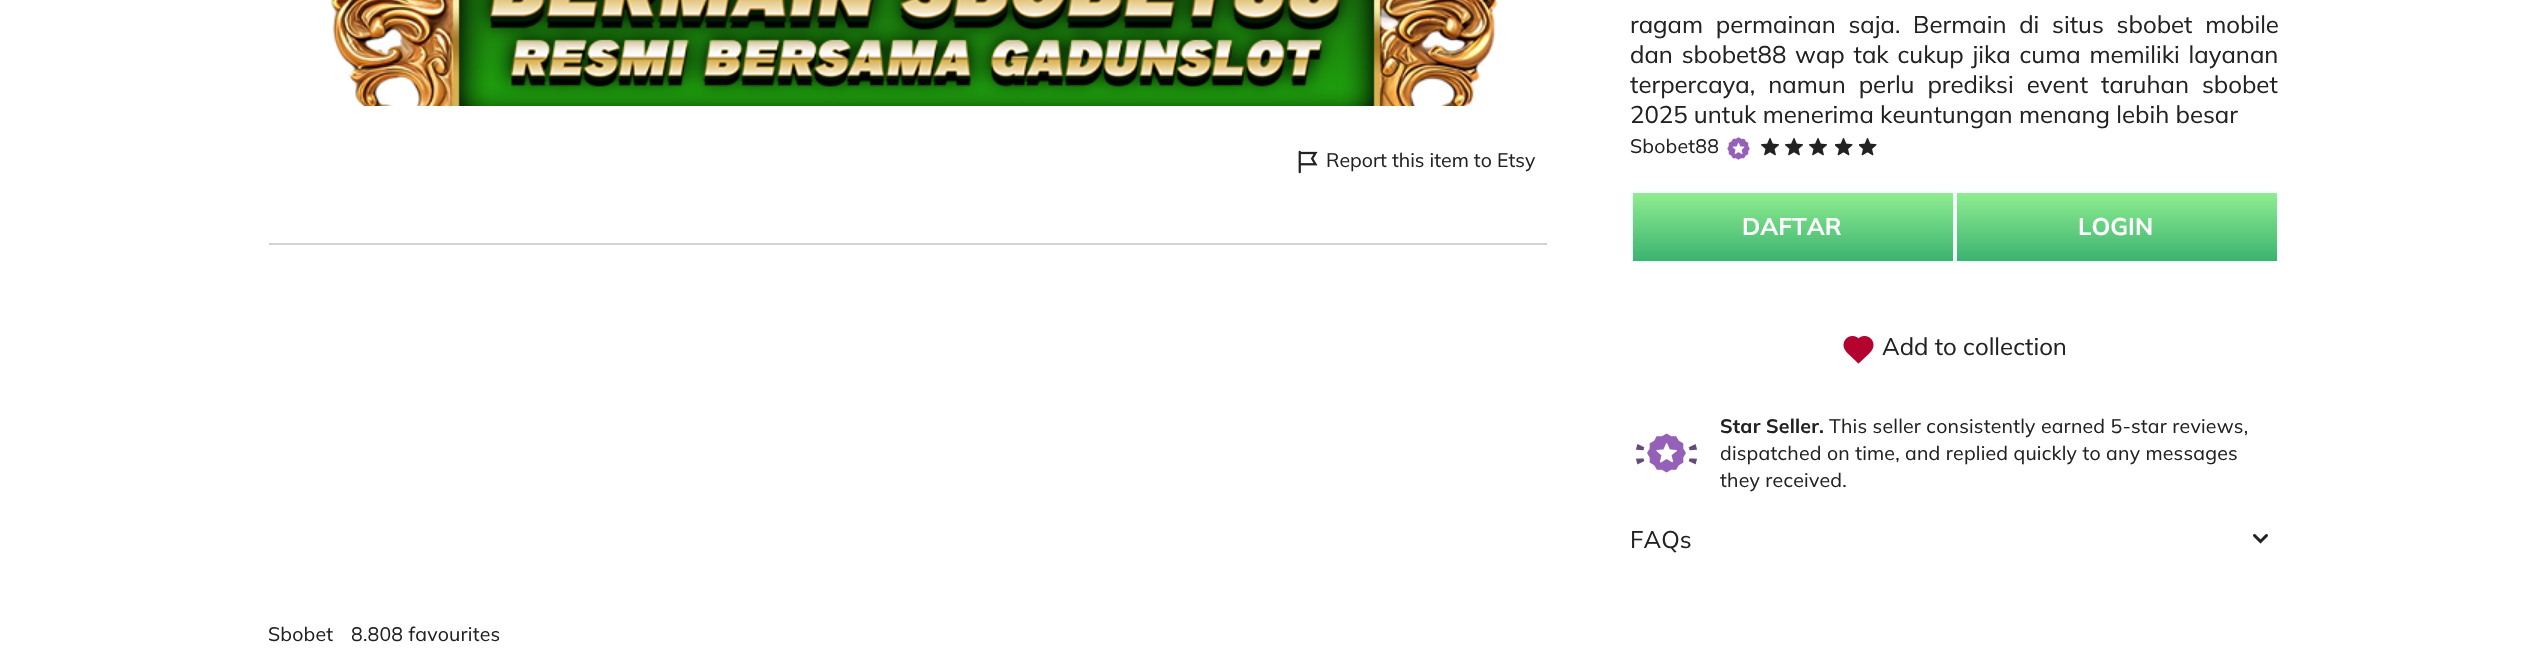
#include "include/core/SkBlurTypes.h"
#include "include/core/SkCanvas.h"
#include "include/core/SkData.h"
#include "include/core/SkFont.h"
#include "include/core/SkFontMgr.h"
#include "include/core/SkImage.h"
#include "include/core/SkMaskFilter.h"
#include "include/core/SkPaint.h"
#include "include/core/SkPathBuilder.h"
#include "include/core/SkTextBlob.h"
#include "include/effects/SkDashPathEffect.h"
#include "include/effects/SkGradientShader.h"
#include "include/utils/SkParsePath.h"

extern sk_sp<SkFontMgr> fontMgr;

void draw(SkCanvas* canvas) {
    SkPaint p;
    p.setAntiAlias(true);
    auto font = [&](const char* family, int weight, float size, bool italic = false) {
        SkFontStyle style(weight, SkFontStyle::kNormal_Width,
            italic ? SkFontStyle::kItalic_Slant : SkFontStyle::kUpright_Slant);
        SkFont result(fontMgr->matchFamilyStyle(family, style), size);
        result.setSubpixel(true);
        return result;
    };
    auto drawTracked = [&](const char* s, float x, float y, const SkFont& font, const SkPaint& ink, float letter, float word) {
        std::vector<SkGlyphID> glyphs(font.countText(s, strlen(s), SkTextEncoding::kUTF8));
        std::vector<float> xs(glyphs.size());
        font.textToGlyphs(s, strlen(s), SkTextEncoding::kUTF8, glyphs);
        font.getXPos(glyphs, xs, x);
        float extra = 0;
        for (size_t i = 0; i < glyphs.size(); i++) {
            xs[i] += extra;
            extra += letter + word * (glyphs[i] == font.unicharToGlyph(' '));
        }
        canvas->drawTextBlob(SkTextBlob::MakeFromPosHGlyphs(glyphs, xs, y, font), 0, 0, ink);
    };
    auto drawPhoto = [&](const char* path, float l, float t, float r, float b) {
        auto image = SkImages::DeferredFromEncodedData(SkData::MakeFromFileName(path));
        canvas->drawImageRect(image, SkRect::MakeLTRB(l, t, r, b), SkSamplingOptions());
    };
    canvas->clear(0xFFFFFFFF);
    drawPhoto("media/1.png", 331, 0, 1498, 106);
    drawPhoto("media/2.png", 1298, 150, 1318, 174);
    auto font1 = font("Mulish", 400, 19.5f);
    p.setColor(0xFF222222);
    canvas->drawString("Report this item to Etsy", 1326, 167, font1, p);
    auto font2 = font("Mulish", 400, 24);
    drawTracked("ragam permainan saja. Bermain di situs sbobet mobile", 1630, 33, font2, p, 0, 6.5f);
    drawTracked("dan sbobet88 wap tak cukup jika cuma memiliki layanan", 1630, 63, font2, p, 0, 2.5f);
    drawTracked("terpercaya, namun perlu prediksi event taruhan sbobet", 1630, 93, font2, p, 0, 6.75f);
    canvas->drawString("2025 untuk menerima keuntungan menang lebih besar", 1630, 123, font2, p);
    drawTracked("Sbobet88", 1630, 153, font1, p, 0.2f, 0);
    drawPhoto("media/3.png", 1727, 137, 1750, 160);
    drawPhoto("media/4.png", 1761, 138, 1779, 156);
    drawPhoto("media/4.png", 1785, 138, 1803, 156);
    drawPhoto("media/4.png", 1809, 138, 1827, 156);
    drawPhoto("media/5.png", 1835, 138, 1853, 156);
    drawPhoto("media/5.png", 1859, 138, 1877, 156);
    {
        const SkColor colors[] = {0xFF90EE90, 0xFF3CB371};
        const float stops[] = {0, 1};
        const SkPoint ends[] = {{1793, 192}, {1793, 261}};
        p.setShader(SkGradientShader::MakeLinear(ends, colors, stops, 2, SkTileMode::kClamp));
        p.setAlpha(255);
    }
    canvas->drawRect(SkRect::MakeLTRB(1633, 193, 1953, 261), p);
    p.setStyle(SkPaint::kStroke_Style);
    p.setStrokeWidth(2);
    p.setShader(nullptr);
    p.setColor(0xFFF4FEFF);
    canvas->drawRect(SkRect::MakeLTRB(1632, 192, 1954, 262), p);
    auto font3 = font("Mulish", 700, 24);
    p.setStyle(SkPaint::kFill_Style);
    p.setColor(0xFFFFFFFF);
    canvas->drawString("DAFTAR", 1742, 235, font3, p);
    {
        const SkColor colors[] = {0xFF90EE90, 0xFF3CB371};
        const float stops[] = {0, 1};
        const SkPoint ends[] = {{2117, 192}, {2117, 261}};
        p.setShader(SkGradientShader::MakeLinear(ends, colors, stops, 2, SkTileMode::kClamp));
        p.setAlpha(255);
    }
    canvas->drawRect(SkRect::MakeLTRB(1957, 193, 2277, 261), p);
    p.setStyle(SkPaint::kStroke_Style);
    p.setShader(nullptr);
    p.setColor(0xFFF4FEFF);
    canvas->drawRect(SkRect::MakeLTRB(1956, 192, 2278, 262), p);
    p.setStyle(SkPaint::kFill_Style);
    p.setColor(0xFFFFFFFF);
    canvas->drawString("LOGIN", 2078, 235, font3, p);
    drawPhoto("media/6.png", 1843, 336, 1874, 364);
    p.setColor(0xFF222222);
    canvas->drawString("Add to collection", 1882, 355, font2, p);
    drawPhoto("media/7.png", 1635, 433, 1698, 473);
    auto font4 = font("Mulish", 700, 19.5f);
    drawTracked("Star Seller.", 1720, 433, font4, p, 0.2f, 0);
    {
        const struct { const char* s; float x, y; } items[] = {
            {"This seller consistently earned 5-star reviews,", 1829, 433},
            {"dispatched on time, and replied quickly to any messages", 1720, 460},
            {"they received.", 1720, 487},
        };
        for (auto [s, x, y] : items) {
            drawTracked(s, x, y, font1, p, 0.2f, 0);
        }
    }
    canvas->drawString("FAQs", 1630, 548, font2, p);
    drawPhoto("media/8.png", 2253, 534, 2268, 544);
    p.setColor(0xFFD4D4D4);
    canvas->drawRect(SkRect::MakeLTRB(269, 243, 1547, 245), p);
    p.setColor(0xFF222222);
    drawTracked("Sbobet", 268, 641, font1, p, 0.2f, 0);
    drawTracked("8.808 favourites", 351, 641, font1, p, 0.2f, 0);
}
